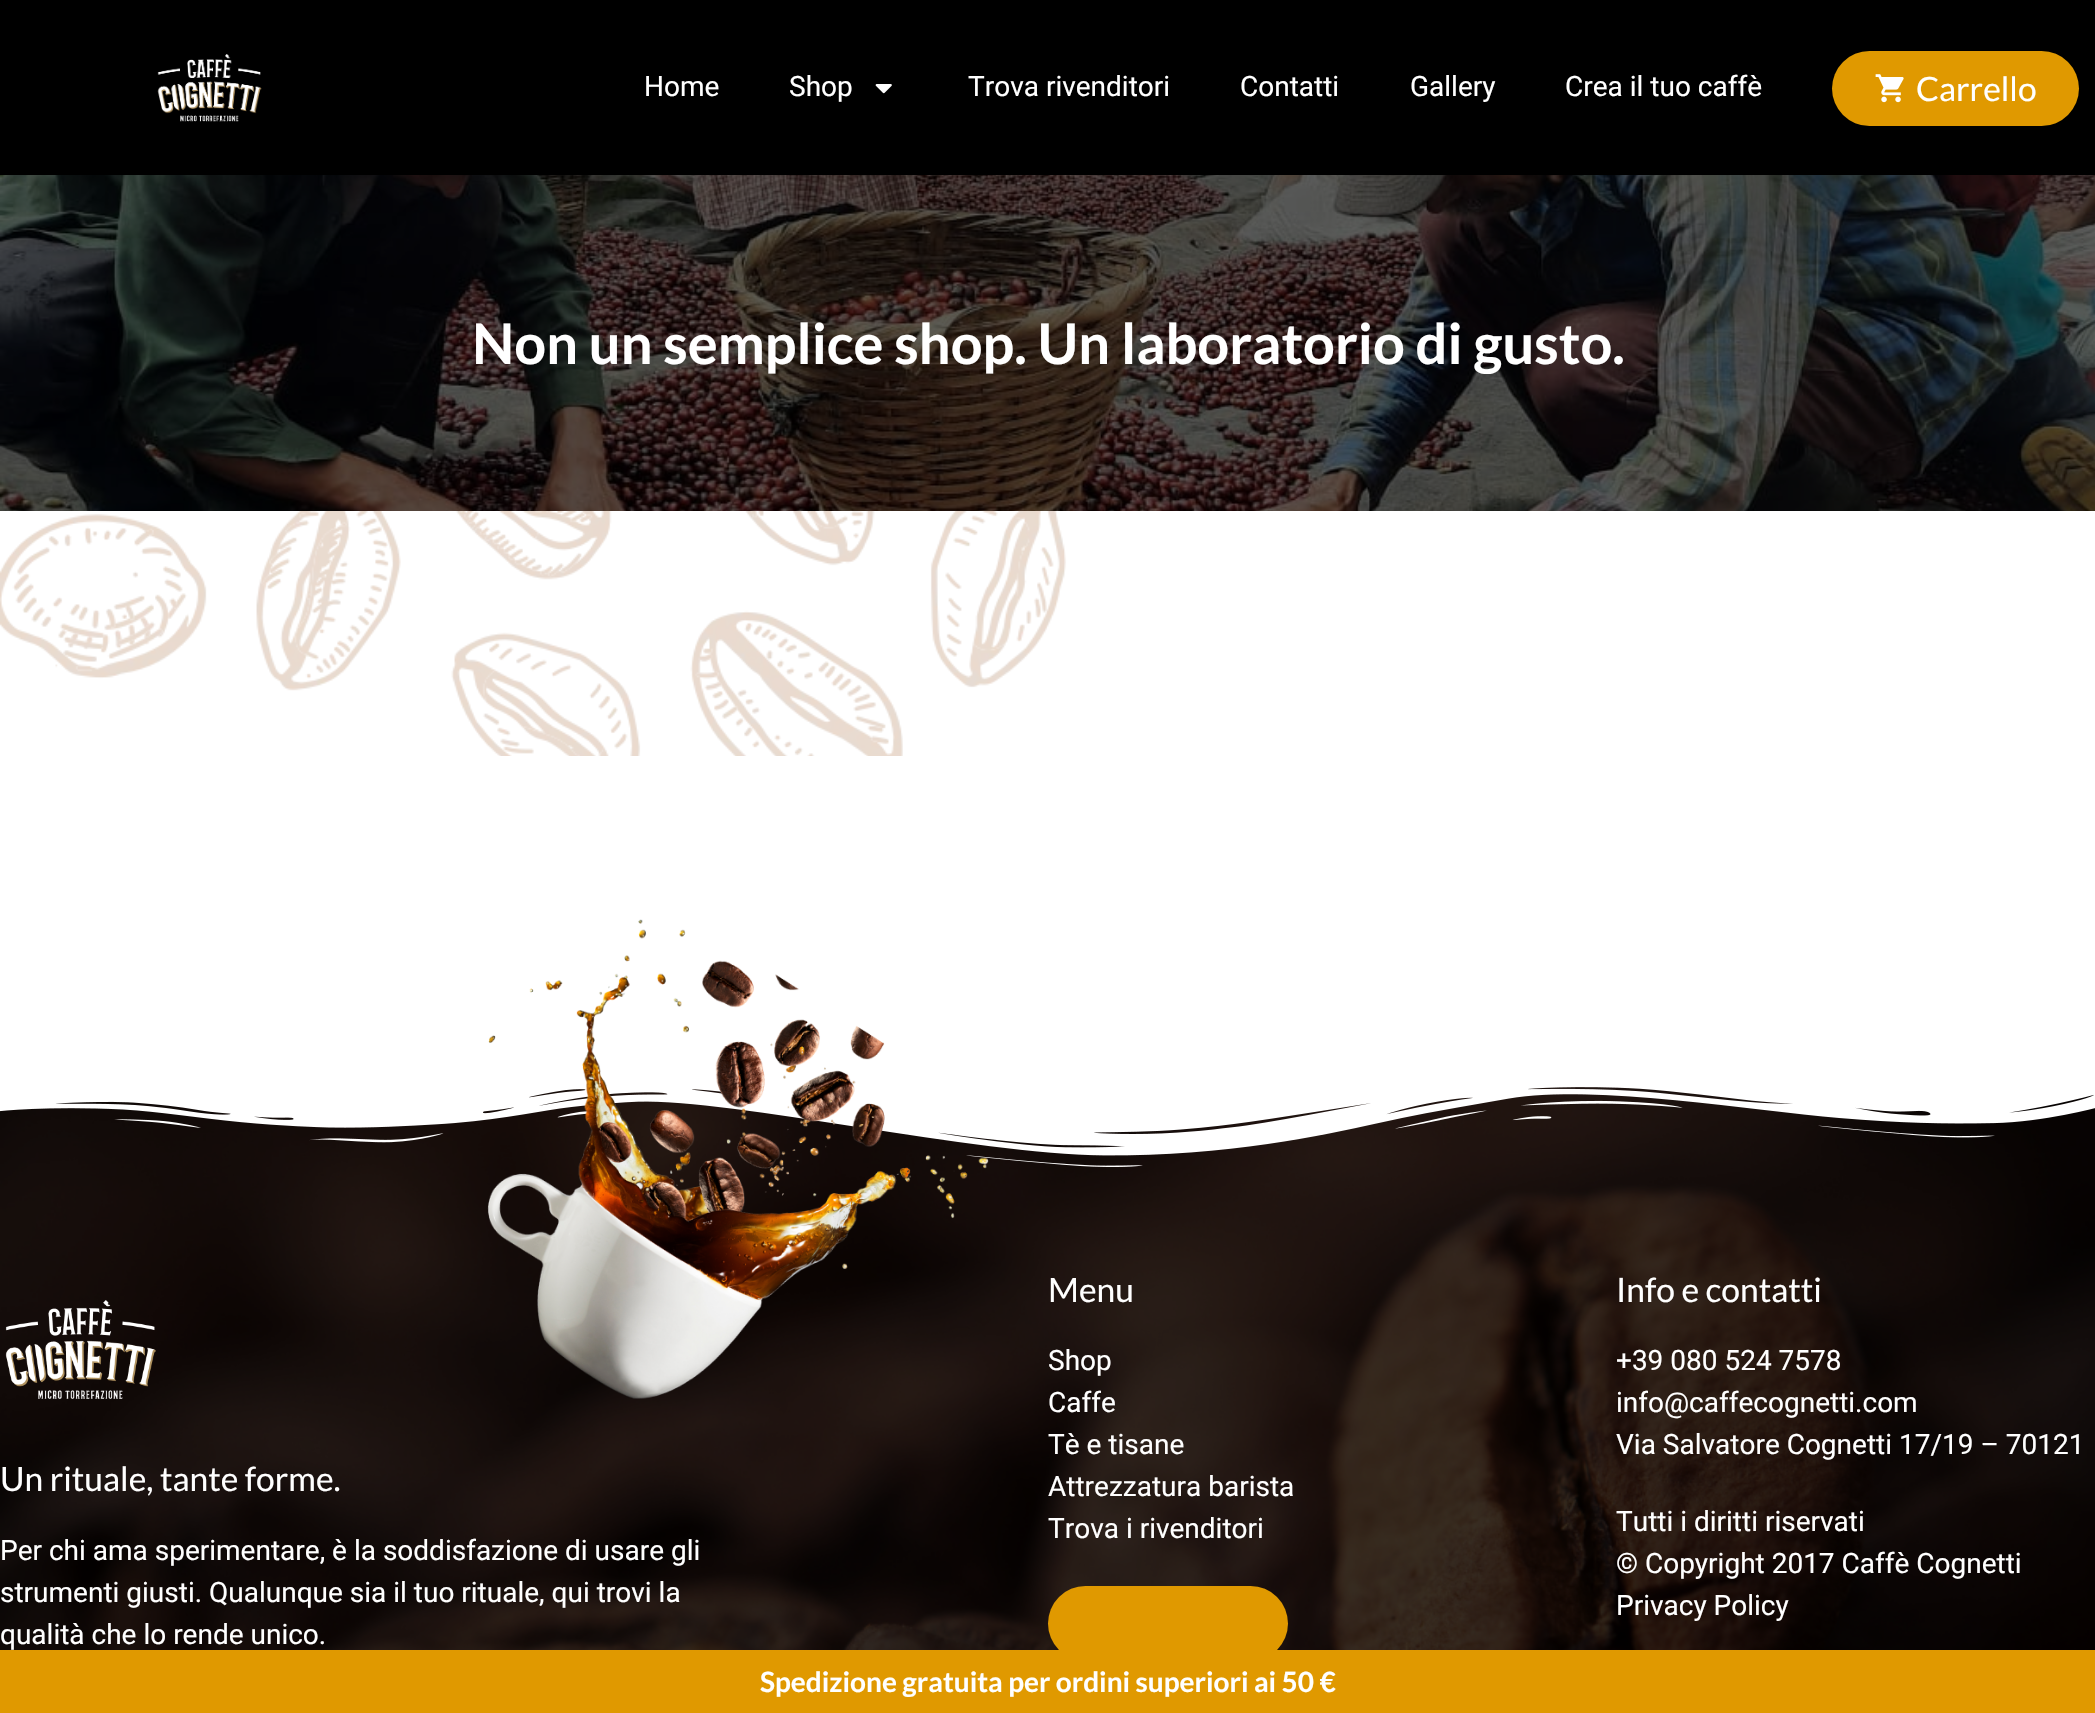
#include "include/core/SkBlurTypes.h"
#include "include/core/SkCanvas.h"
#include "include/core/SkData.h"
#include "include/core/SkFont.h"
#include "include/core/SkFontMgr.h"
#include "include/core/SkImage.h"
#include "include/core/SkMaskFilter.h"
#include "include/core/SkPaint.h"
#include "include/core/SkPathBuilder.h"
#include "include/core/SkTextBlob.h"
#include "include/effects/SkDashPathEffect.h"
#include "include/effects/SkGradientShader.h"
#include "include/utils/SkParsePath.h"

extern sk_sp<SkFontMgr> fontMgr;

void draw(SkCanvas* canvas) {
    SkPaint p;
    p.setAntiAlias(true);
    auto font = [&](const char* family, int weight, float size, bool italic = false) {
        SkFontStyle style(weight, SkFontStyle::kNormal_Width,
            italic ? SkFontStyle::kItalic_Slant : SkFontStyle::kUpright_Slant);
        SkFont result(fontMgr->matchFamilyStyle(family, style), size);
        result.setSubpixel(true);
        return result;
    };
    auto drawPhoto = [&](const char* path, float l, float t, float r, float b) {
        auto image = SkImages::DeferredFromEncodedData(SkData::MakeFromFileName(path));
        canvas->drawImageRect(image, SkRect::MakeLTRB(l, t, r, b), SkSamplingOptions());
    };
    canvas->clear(0xFFFFFFFF);
    p.setColor(0xFF000000);
    canvas->drawRect(SkRect::MakeLTRB(0, 0, 2095, 175), p);
    drawPhoto("media/1.png", 157, 54, 262, 122);
    auto font1 = font("Roboto", 400, 28);
    p.setColor(0xFFFFFFFF);
    canvas->drawString("Home", 644, 96, font1, p);
    canvas->drawString("Shop", 789, 96, font1, p);
    drawPhoto("media/2.png", 875, 84, 892, 94);
    {
        const struct { const char* s; float x, y; } items[] = {
            {"Trova rivenditori", 968, 96},
            {"Contatti", 1240, 96},
            {"Gallery", 1410, 96},
            {"Crea il tuo caffè", 1565, 96},
        };
        for (auto [s, x, y] : items) {
            canvas->drawString(s, x, y, font1, p);
        }
    }
    p.setColor(0xFFE09900);
    canvas->drawRoundRect(SkRect::MakeLTRB(1832, 51, 2079, 126), 37.5f, 37.5f, p);
    drawPhoto("media/3.png", 1875, 74, 1904, 103);
    auto font2 = font("Lato", 400, 33.6f);
    p.setColor(0xFFFFFFFF);
    canvas->drawString("Carrello", 1916, 101, font2, p);
    drawPhoto("media/4.png", 0, 175, 2095, 511);
    auto font3 = font("Lato", 700, 56);
    canvas->drawString("Non un semplice shop. Un laboratorio di gusto.", 472, 364, font3, p);
    drawPhoto("media/5.png", 0, 511, 1067, 756);
    drawPhoto("media/7.png", 0, 1087, 2095, 1650);
    drawPhoto("media/8.png", 0, 1076, 2095, 1167);
    drawPhoto("media/6.png", 487, 919, 989, 1399);
    drawPhoto("media/9.png", 5, 1300, 156, 1399);
    canvas->drawString("Un rituale, tante forme.", 0, 1491, font2, p);
    {
        const struct { const char* s; float x, y; } items[] = {
            {"Per chi ama sperimentare, è la soddisfazione di usare gli", 0, 1560},
            {"strumenti giusti. Qualunque sia il tuo rituale, qui trovi la", 0, 1602},
            {"qualità che lo rende unico.", 0, 1644},
        };
        for (auto [s, x, y] : items) {
            canvas->drawString(s, x, y, font1, p);
        }
    }
    canvas->drawString("Menu", 1048, 1302, font2, p);
    {
        const struct { const char* s; float x, y; } items[] = {
            {"Shop", 1048, 1370},
            {"Caffe", 1048, 1412},
            {"Tè e tisane", 1048, 1454},
            {"Attrezzatura barista", 1048, 1496},
            {"Trova i rivenditori", 1048, 1538},
        };
        for (auto [s, x, y] : items) {
            canvas->drawString(s, x, y, font1, p);
        }
    }
    p.setColor(0xFFE09900);
    canvas->drawRoundRect(SkRect::MakeLTRB(1048, 1586, 1288, 1661), 37.5f, 37.5f, p);
    p.setColor(0xFFFFFFFF);
    canvas->drawString("Info e contatti", 1616, 1302, font2, p);
    {
        const struct { const char* s; float x, y; } items[] = {
            {"+39 080 524 7578", 1616, 1370},
            {"info@caffecognetti.com", 1616, 1412},
            {"Via Salvatore Cognetti 17/19 – 70121", 1616, 1454},
            {"Tutti i diritti riservati", 1616, 1531},
            {"© Copyright 2017 Caffè Cognetti", 1616, 1573},
            {"Privacy Policy", 1616, 1615},
        };
        for (auto [s, x, y] : items) {
            canvas->drawString(s, x, y, font1, p);
        }
    }
    p.setColor(0xFFE09900);
    canvas->drawRect(SkRect::MakeLTRB(0, 1650, 2095, 1713), p);
    auto font4 = font("Lato", 700, 28);
    p.setColor(0xFFFFFFFF);
    canvas->drawString("Spedizione gratuita per ordini superiori ai 50 €", 760, 1692, font4, p);
}
